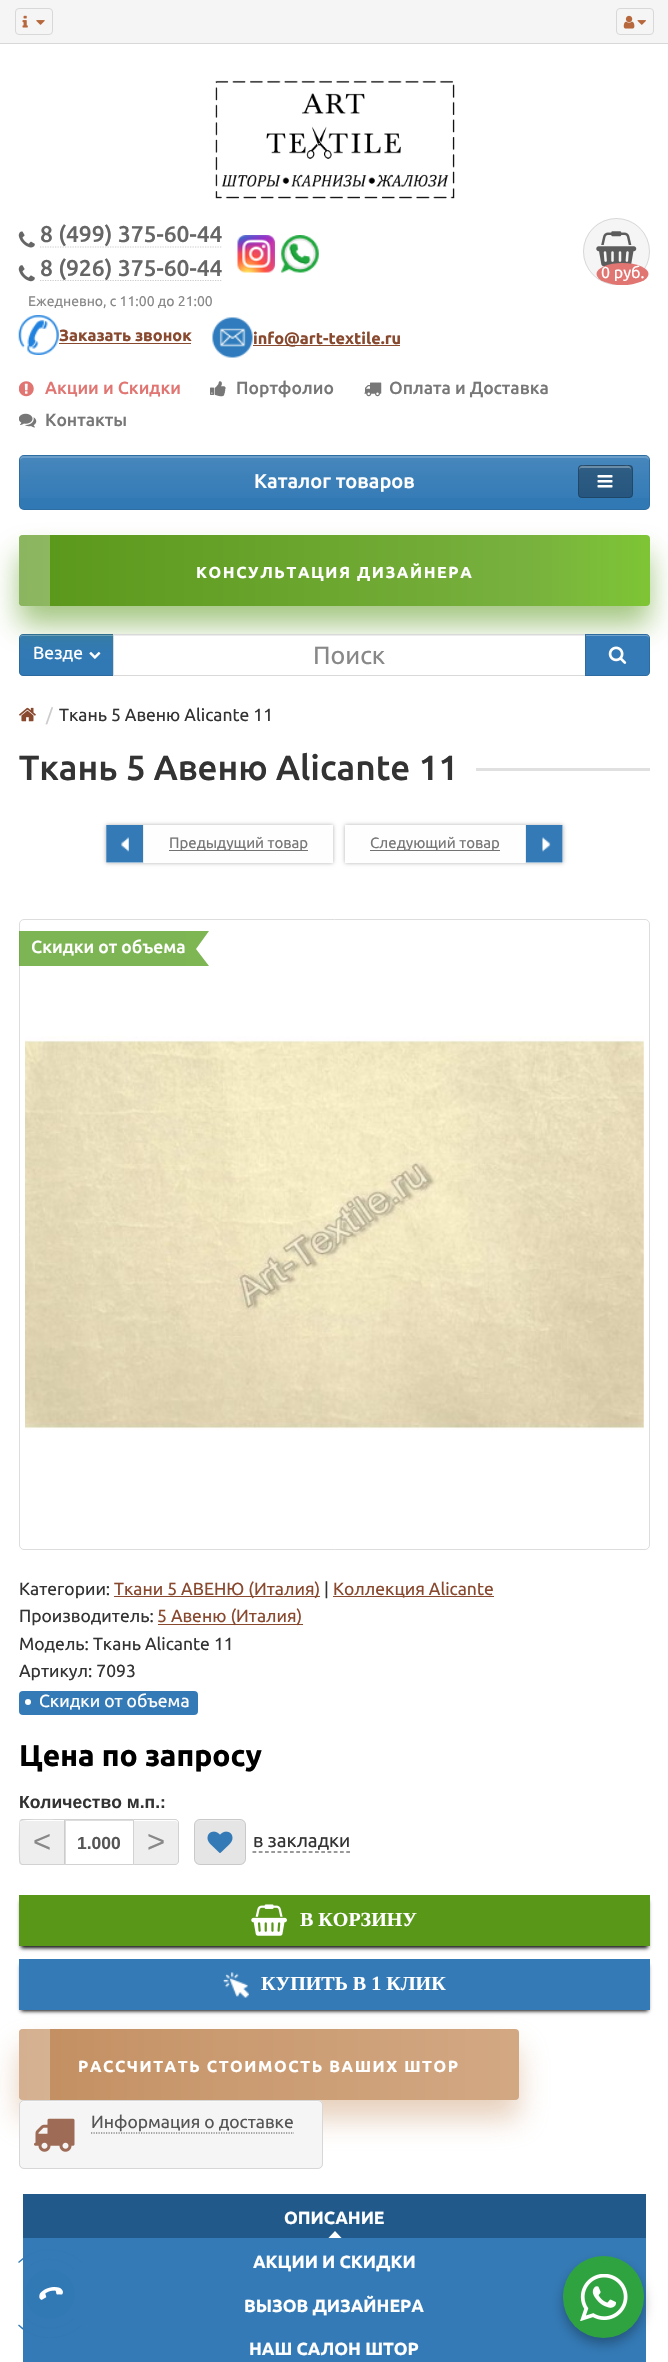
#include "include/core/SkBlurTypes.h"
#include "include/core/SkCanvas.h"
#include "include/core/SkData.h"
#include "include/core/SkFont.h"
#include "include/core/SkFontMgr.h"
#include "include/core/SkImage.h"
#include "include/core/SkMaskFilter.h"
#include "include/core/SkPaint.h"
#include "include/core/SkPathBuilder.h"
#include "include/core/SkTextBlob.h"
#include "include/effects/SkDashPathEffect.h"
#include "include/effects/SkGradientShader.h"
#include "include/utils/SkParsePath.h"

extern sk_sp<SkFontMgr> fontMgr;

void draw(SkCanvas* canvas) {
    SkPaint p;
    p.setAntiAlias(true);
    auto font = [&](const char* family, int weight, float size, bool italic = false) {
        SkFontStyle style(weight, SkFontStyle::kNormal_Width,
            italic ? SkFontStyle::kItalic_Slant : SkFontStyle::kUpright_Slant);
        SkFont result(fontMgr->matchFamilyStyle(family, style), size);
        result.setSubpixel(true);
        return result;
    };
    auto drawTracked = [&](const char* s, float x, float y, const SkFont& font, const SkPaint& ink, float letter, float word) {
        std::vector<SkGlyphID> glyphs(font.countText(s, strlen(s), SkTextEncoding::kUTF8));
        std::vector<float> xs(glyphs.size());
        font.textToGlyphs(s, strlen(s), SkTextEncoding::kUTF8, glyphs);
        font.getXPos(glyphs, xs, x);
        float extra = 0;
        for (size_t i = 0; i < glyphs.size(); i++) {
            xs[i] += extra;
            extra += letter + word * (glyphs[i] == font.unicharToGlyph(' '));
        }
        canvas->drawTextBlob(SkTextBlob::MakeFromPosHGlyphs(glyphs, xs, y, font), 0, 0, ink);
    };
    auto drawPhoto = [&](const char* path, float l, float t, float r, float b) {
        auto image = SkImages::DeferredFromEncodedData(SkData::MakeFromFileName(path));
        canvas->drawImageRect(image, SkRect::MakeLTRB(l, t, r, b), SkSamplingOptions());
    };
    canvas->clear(0xFFFFFFFF);
    p.setColor(0xFFF5F5F5);
    canvas->drawRect(SkRect::MakeLTRB(0, 0, 668, 43), p);
    p.setColor(0xFFD8D8D8);
    canvas->drawRect(SkRect::MakeLTRB(0, 43, 668, 44), p);
    p.setStyle(SkPaint::kStroke_Style);
    p.setStrokeWidth(1);
    canvas->drawRoundRect(SkRect::MakeLTRB(15.5f, 8.5f, 52.5f, 34.5f), 3.5f, 3.5f, p);
    drawPhoto("media/1.png", 22, 15, 28, 28);
    drawPhoto("media/2.png", 36, 20, 45, 25);
    canvas->drawRoundRect(SkRect::MakeLTRB(616.5f, 8.5f, 653.5f, 34.5f), 3.5f, 3.5f, p);
    drawPhoto("media/3.png", 623, 15, 635, 29);
    drawPhoto("media/4.png", 637, 20, 646, 25);
    drawPhoto("media/5.png", 215, 80, 455, 199);
    drawPhoto("media/6.png", 18, 231, 35, 248);
    p.setStrokeWidth(1.2f);
    p.setColor(0xFFCCCCCC);
    p.setPathEffect(SkDashPathEffect::Make({{1.25f, 1.25f}}, 0));
    canvas->drawPath(SkPathBuilder().moveTo(40, 247).lineTo(222.5f, 247).detach(), p);
    p.setPathEffect(nullptr);
    auto font1 = font("Ubuntu", 500, 22.75f);
    p.setStyle(SkPaint::kFill_Style);
    p.setColor(0xFF666666);
    canvas->drawString("8 (499) 375-60-44", 40, 242, font1, p);
    drawPhoto("media/7.png", 18, 265, 35, 282);
    p.setStyle(SkPaint::kStroke_Style);
    p.setColor(0xFFCCCCCC);
    p.setPathEffect(SkDashPathEffect::Make({{1.25f, 1.25f}}, 0));
    canvas->drawPath(SkPathBuilder().moveTo(40, 280.5f).lineTo(222.5f, 280.5f).detach(), p);
    p.setPathEffect(nullptr);
    p.setStyle(SkPaint::kFill_Style);
    p.setColor(0xFF666666);
    canvas->drawString("8 (926) 375-60-44", 40, 276, font1, p);
    auto font2 = font("Ubuntu", 400, 14);
    p.setColor(0xFF888888);
    canvas->drawString("Ежедневно, с 11:00 до 21:00", 28, 306, font2, p);
    drawPhoto("media/8.png", 237, 235, 275, 273);
    drawPhoto("media/9.png", 281, 235, 319, 273);
    drawPhoto("media/10.png", 18, 315, 59, 355);
    auto font3 = font("Ubuntu", 700, 16.25f);
    p.setColor(0xFF88492F);
    canvas->drawString("Заказать звонок", 59, 341, font3, p);
    canvas->drawRect(SkRect::MakeLTRB(59, 343, 191, 344), p);
    drawPhoto("media/11.png", 212, 317, 253, 358);
    canvas->drawRect(SkRect::MakeLTRB(253, 345, 400, 346), p);
    canvas->drawString("info@art-textile.ru", 253, 344, font3, p);
    p.setColor(0xFFF5F5F5);
    canvas->drawCircle(616.5f, 251.5f, 33.5f, p);
    p.setStyle(SkPaint::kStroke_Style);
    p.setStrokeWidth(1);
    p.setColor(0x1F000000);
    canvas->drawCircle(616.5f, 251.5f, 33, p);
    drawPhoto("media/12.png", 596, 231, 637, 267);
    p.setStyle(SkPaint::kFill_Style);
    p.setColor(0xFFE07572);
    canvas->drawOval(SkRect::MakeLTRB(596.5f, 263, 648.5f, 285), p);
    auto font4 = font("Ubuntu", 400, 16);
    p.setColor(0xFFFFFFFF);
    canvas->drawString("0 руб.", 601, 278, font4, p);
    drawPhoto("media/13.png", 19, 381, 34, 397);
    auto font5 = font("Ubuntu", 500, 17.5f);
    p.setColor(0xFFE07572);
    canvas->drawString("Акции и Скидки", 45, 394, font5, p);
    drawPhoto("media/14.png", 210, 381, 226, 397);
    p.setColor(0xFF777777);
    canvas->drawString("Портфолио", 236, 394, font5, p);
    drawPhoto("media/15.png", 364, 382, 382, 397);
    canvas->drawString("Оплата и Доставка", 389, 394, font5, p);
    drawPhoto("media/16.png", 19, 413, 37, 428);
    canvas->drawString("Контакты", 45, 426, font5, p);
    p.setColor(0xFF3179B5);
    canvas->drawRoundRect(SkRect::MakeLTRB(19, 455, 650, 510), 5, 5, p);
    p.setColor(0xFF5A94C4);
    canvas->drawPath(SkPathBuilder().moveTo(24, 458).lineTo(645, 458).cubicTo(647, 458, 649, 459, 649, 461).cubicTo(649, 458, 648, 456, 645, 456).lineTo(24, 456).cubicTo(21, 456, 20, 458, 20, 461).cubicTo(20, 459, 22, 458, 24, 458).close().detach(), p);
    p.setStyle(SkPaint::kStroke_Style);
    p.setColor(0x1A000000);
    canvas->drawRoundRect(SkRect::MakeLTRB(19.5f, 455.5f, 649.5f, 509.5f), 4.5f, 4.5f, p);
    p.setStyle(SkPaint::kFill_Style);
    {
        const SkColor colors[] = {0x1AFFFFFF, 0x00FFFFFF};
        const float stops[] = {0, 1};
        const SkPoint ends[] = {{334, 456}, {334, 509}};
        p.setShader(SkGradientShader::MakeLinear(ends, colors, stops, 2, SkTileMode::kClamp));
        p.setAlpha(255);
    }
    canvas->drawRect(SkRect::MakeLTRB(20, 456, 649, 498), p);
    auto font6 = font("Ubuntu", 500, 20);
    p.setShader(nullptr);
    p.setColor(0xFFFFFFFF);
    canvas->drawString("Каталог товаров", 254, 488, font6, p);
    p.setColor(0x4D000000);
    canvas->drawRoundRect(SkRect::MakeLTRB(578, 465, 633, 498), 4, 4, p);
    p.setColor(0xFF6C8DA8);
    canvas->drawPath(SkPathBuilder().moveTo(581, 468).lineTo(629, 468).cubicTo(630, 468, 631, 469, 631, 470).cubicTo(631, 464, 626, 466, 621, 466).lineTo(589, 466).cubicTo(584, 466, 579, 464, 579, 470).cubicTo(579, 469, 580, 468, 581, 468).close().detach(), p);
    p.setStyle(SkPaint::kStroke_Style);
    p.setColor(0x33000000);
    canvas->drawRoundRect(SkRect::MakeLTRB(578.5f, 465.5f, 632.5f, 497.5f), 3.5f, 3.5f, p);
    drawPhoto("media/17.png", 597, 475, 613, 488);
    p.setStyle(SkPaint::kFill_Style);
    p.setColor(0xFF3179B5);
    canvas->drawPath(SkPathBuilder().moveTo(23, 634).lineTo(115, 634).lineTo(115, 676).lineTo(23, 676).cubicTo(21, 676, 19, 674, 19, 672).lineTo(19, 638).cubicTo(19, 636, 21, 634, 23, 634).close().detach(), p);
    p.setColor(0xFF6FA1CB);
    canvas->drawPath(SkPathBuilder().moveTo(22, 636).lineTo(114, 636).lineTo(114, 635).lineTo(22, 635).cubicTo(21, 635, 20, 636, 20, 638).lineTo(20, 639).cubicTo(20, 637, 21, 636, 22, 636).close().detach(), p);
    p.setStyle(SkPaint::kStroke_Style);
    p.setColor(0x1F000000);
    canvas->drawPath(SkPathBuilder().moveTo(23, 634.5f).lineTo(114.5f, 634.5f).lineTo(114.5f, 675.5f).lineTo(23, 675.5f).cubicTo(21, 675.5f, 19.5f, 674, 19.5f, 672).lineTo(19.5f, 638).cubicTo(19.5f, 636, 21, 634.5f, 23, 634.5f).close().detach(), p);
    drawPhoto("media/18.png", 89, 651, 101, 659);
    p.setStyle(SkPaint::kFill_Style);
    p.setColor(0x8A599719);
    p.setMaskFilter(SkMaskFilter::MakeBlur(kNormal_SkBlurStyle, 14.5f));
    canvas->drawRoundRect(SkRect::MakeLTRB(19, 554, 650, 625), 4, 4, p);
    p.setMaskFilter(nullptr);
    {
        const SkColor colors[] = {0xFF599719, 0xFF78B13E, 0xFF7EC535};
        const float stops[] = {0, 0.8f, 1};
        const SkPoint ends[] = {{19, 571}, {650, 571}};
        p.setShader(SkGradientShader::MakeLinear(ends, colors, stops, 3, SkTileMode::kClamp));
        p.setAlpha(255);
    }
    canvas->drawRoundRect(SkRect::MakeLTRB(19, 535, 650, 606), 4, 4, p);
    p.setShader(nullptr);
    p.setColor(0x4DFFFFFF);
    canvas->drawPath(SkPathBuilder().moveTo(23, 535).lineTo(50, 535).lineTo(50, 606).lineTo(23, 606).cubicTo(21, 606, 19, 604, 19, 602).lineTo(19, 539).cubicTo(19, 537, 21, 535, 23, 535).close().detach(), p);
    auto font7 = font("Ubuntu", 700, 16);
    p.setColor(0xFFFFFFFF);
    drawTracked("КОНСУЛЬТАЦИЯ ДИЗАЙНЕРА", 196, 578, font7, p, 1.6f, 0);
    auto font8 = font("Ubuntu", 400, 17.5f);
    canvas->drawString("Везде", 33, 659, font8, p);
    canvas->drawRect(SkRect::MakeLTRB(114, 636, 585, 675), p);
    p.setColor(0xFFECECEC);
    canvas->drawRect(SkRect::MakeLTRB(114, 635, 585, 636), p);
    p.setStyle(SkPaint::kStroke_Style);
    p.setColor(0xFFD9D9D9);
    canvas->drawRect(SkRect::MakeLTRB(113.5f, 634.5f, 585.5f, 675.5f), p);
    auto font9 = font("Ubuntu", 400, 25);
    p.setStyle(SkPaint::kFill_Style);
    p.setColor(0xFF888888);
    canvas->drawString("Поиск", 313, 664, font9, p);
    p.setColor(0xFF347AB6);
    canvas->drawPath(SkPathBuilder().moveTo(585, 634).lineTo(646, 634).cubicTo(648, 634, 650, 636, 650, 638).lineTo(650, 672).cubicTo(650, 674, 648, 676, 646, 676).lineTo(585, 676).close().detach(), p);
    p.setColor(0xFF71A2CC);
    canvas->drawPath(SkPathBuilder().moveTo(586, 636).lineTo(646, 636).cubicTo(648, 636, 649, 637, 649, 639).lineTo(649, 638).cubicTo(649, 636, 648, 635, 646, 635).lineTo(586, 635).close().detach(), p);
    p.setStyle(SkPaint::kStroke_Style);
    p.setColor(0x1F000000);
    canvas->drawPath(SkPathBuilder().moveTo(585.5f, 634.5f).lineTo(646, 634.5f).cubicTo(648, 634.5f, 649.5f, 636, 649.5f, 638).lineTo(649.5f, 672).cubicTo(649.5f, 674, 648, 675.5f, 646, 675.5f).lineTo(585.5f, 675.5f).close().detach(), p);
    drawPhoto("media/19.png", 608, 646, 627, 664);
    drawPhoto("media/20.png", 19, 707, 36, 722);
    p.setStyle(SkPaint::kFill_Style);
    p.setColor(0xFFCCCCCC);
    canvas->drawString("/", 46, 721, font8, p);
    p.setColor(0xFF333333);
    canvas->drawString("Ткань 5 Авеню Alicante 11", 59, 721, font8, p);
    auto font10 = font("Ubuntu", 500, 35);
    canvas->drawString("Ткань 5 Авеню Alicante 11", 19, 780, font10, p);
    p.setColor(0xFFE0E0E0);
    canvas->drawRect(SkRect::MakeLTRB(476, 768, 650, 771), p);
    p.setColor(0x4D000000);
    p.setMaskFilter(SkMaskFilter::MakeBlur(kNormal_SkBlurStyle, 2));
    canvas->drawRect(SkRect::MakeLTRB(106, 825, 333, 863), p);
    p.setMaskFilter(nullptr);
    p.setColor(0xFFFEFEFE);
    canvas->drawRect(SkRect::MakeLTRB(106, 825, 333, 863), p);
    drawPhoto("media/21.png", 106, 825, 143, 863);
    p.setColor(0xFFEDEDED);
    canvas->drawRect(SkRect::MakeLTRB(143, 825, 144, 863), p);
    p.setColor(0xFF727272);
    canvas->drawRect(SkRect::MakeLTRB(169, 850, 308, 851), p);
    auto font11 = font("Ubuntu", 400, 15);
    p.setColor(0xFF777777);
    canvas->drawString("Предыдущий товар", 169, 848, font11, p);
    p.setColor(0x4D000000);
    p.setMaskFilter(SkMaskFilter::MakeBlur(kNormal_SkBlurStyle, 2));
    canvas->drawRect(SkRect::MakeLTRB(345, 825, 563, 863), p);
    p.setMaskFilter(nullptr);
    p.setColor(0xFFFEFEFE);
    canvas->drawRect(SkRect::MakeLTRB(345, 825, 563, 863), p);
    p.setColor(0xFF727272);
    canvas->drawRect(SkRect::MakeLTRB(370, 850, 500, 851), p);
    p.setColor(0xFF777777);
    canvas->drawString("Следующий товар", 370, 848, font11, p);
    drawPhoto("media/22.png", 526, 825, 563, 863);
    p.setColor(0xFFEDEDED);
    canvas->drawRect(SkRect::MakeLTRB(525, 825, 526, 863), p);
    p.setStyle(SkPaint::kStroke_Style);
    p.setColor(0xFFDDDDDD);
    canvas->drawRoundRect(SkRect::MakeLTRB(19.5f, 919.5f, 649.5f, 1549.5f), 4.5f, 4.5f, p);
    drawPhoto("media/23.png", 25, 1036, 644, 1430);
    p.setStyle(SkPaint::kFill_Style);
    p.setColor(0xB347960B);
    canvas->drawRect(SkRect::MakeLTRB(19, 931, 186, 966), p);
    p.setColor(0xFFFFFFFF);
    canvas->drawString("Скидки от объема", 31, 953, font5, p);
    p.setColor(0xFF7EB654);
    canvas->drawPath(SkPathBuilder().moveTo(186, 931).lineTo(209, 931).lineTo(196, 949).lineTo(186, 949).close().moveTo(209, 966).lineTo(186, 966).lineTo(186, 949).lineTo(196, 949).close().detach(), p);
    p.setColor(0xFF333333);
    canvas->drawString("Категории:", 19, 1595, font8, p);
    p.setColor(0xFF88492F);
    canvas->drawRect(SkRect::MakeLTRB(114, 1596, 320, 1597), p);
    canvas->drawString("Ткани 5 АВЕНЮ (Италия)", 114, 1595, font8, p);
    p.setColor(0xFF333333);
    canvas->drawString("|", 324, 1595, font8, p);
    p.setColor(0xFF88492F);
    canvas->drawRect(SkRect::MakeLTRB(333, 1596, 494, 1597), p);
    canvas->drawString("Коллекция Alicante", 333, 1595, font8, p);
    p.setColor(0xFF333333);
    canvas->drawString("Производитель:", 19, 1622, font8, p);
    p.setColor(0xFF88492F);
    canvas->drawRect(SkRect::MakeLTRB(158, 1624, 303, 1625), p);
    canvas->drawString("5 Авеню (Италия)", 157, 1622, font8, p);
    p.setColor(0xFF333333);
    canvas->drawString("Модель: Ткань Alicante 11", 19, 1650, font8, p);
    canvas->drawString("Артикул: 7093", 19, 1677, font8, p);
    p.setColor(0xFF347AB6);
    canvas->drawRoundRect(SkRect::MakeLTRB(19, 1691, 198, 1715), 4, 4, p);
    p.setColor(0xFFFFFFFF);
    canvas->drawCircle(28, 1702, 3, p);
    canvas->drawString("Скидки от объема", 39, 1707, font8, p);
    auto font12 = font("Ubuntu", 700, 30);
    p.setColor(0xFF000000);
    canvas->drawString("Цена по запросу", 19, 1766, font12, p);
    auto font13 = font("Liberation Sans", 700, 17.5f);
    p.setColor(0xFF333333);
    canvas->drawString("Количество м.п.:", 19, 1808, font13, p);
    p.setColor(0xFFEEEEEE);
    canvas->drawPath(SkPathBuilder().moveTo(23, 1819).lineTo(65, 1819).lineTo(65, 1865).lineTo(23, 1865).cubicTo(21, 1865, 19, 1863, 19, 1861).lineTo(19, 1823).cubicTo(19, 1821, 21, 1819, 23, 1819).close().detach(), p);
    p.setColor(0xFFFFFFFF);
    canvas->drawPath(SkPathBuilder().moveTo(22, 1821).lineTo(64, 1821).lineTo(64, 1820).lineTo(22, 1820).cubicTo(21, 1820, 20, 1821, 20, 1822).lineTo(20, 1824).cubicTo(20, 1822, 21, 1821, 22, 1821).close().detach(), p);
    p.setColor(0xFFD2D2D2);
    canvas->drawPath(SkPathBuilder().moveTo(22, 1819).lineTo(20, 1820).lineTo(21, 1821).cubicTo(22, 1819, 59, 1820, 64, 1820).lineTo(65, 1819).close().detach(), p);
    p.setColor(0xFFCCCCCC);
    canvas->drawPath(SkPathBuilder().moveTo(65, 1865).lineTo(65, 1819).lineTo(64, 1820).lineTo(64, 1864).close().detach(), p);
    p.setColor(0xFFD2D2D2);
    canvas->drawPath(SkPathBuilder().moveTo(65, 1865).lineTo(64, 1864).lineTo(22, 1864).lineTo(21, 1863).lineTo(20, 1864).lineTo(22, 1865).close().detach(), p);
    canvas->drawPath(SkPathBuilder().moveTo(20, 1820).cubicTo(19, 1821, 18, 1861, 20, 1864).lineTo(21, 1863).cubicTo(19, 1862, 20, 1825, 20, 1822).lineTo(21, 1821).close().detach(), p);
    auto font14 = font("Liberation Sans", 400, 31);
    p.setColor(0xFF888888);
    canvas->drawString("<", 33, 1852, font14, p);
    canvas->save();
    canvas->clipRect(SkRect::MakeLTRB(65, 1820, 134, 1864));
    p.setColor(0xFFDDDDDD);
    canvas->drawPath(SkPathBuilder(SkPathFillType::kEvenOdd).moveTo(-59, 1696).lineTo(258, 1696).lineTo(258, 1988).lineTo(-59, 1988).close().moveTo(66, 1821).lineTo(135, 1821).lineTo(135, 1865).lineTo(66, 1865).close().detach(), p);
    canvas->restore();
    p.setColor(0xFFD2D2D2);
    canvas->drawRect(SkRect::MakeLTRB(65, 1819, 134, 1820), p);
    canvas->drawRect(SkRect::MakeLTRB(65, 1864, 134, 1865), p);
    p.setColor(0xFF555555);
    canvas->drawString("1.000", 77, 1849, font13, p);
    p.setColor(0xFFEEEEEE);
    canvas->drawPath(SkPathBuilder().moveTo(133, 1819).lineTo(175, 1819).cubicTo(177, 1819, 179, 1821, 179, 1823).lineTo(179, 1861).cubicTo(179, 1863, 177, 1865, 175, 1865).lineTo(133, 1865).close().detach(), p);
    p.setColor(0xFFFFFFFF);
    canvas->drawPath(SkPathBuilder().moveTo(134, 1821).lineTo(175, 1821).cubicTo(176, 1821, 178, 1822, 178, 1824).lineTo(178, 1822).cubicTo(178, 1821, 177, 1820, 176, 1820).lineTo(134, 1820).close().detach(), p);
    p.setStyle(SkPaint::kStroke_Style);
    p.setColor(0xFFD2D2D2);
    canvas->drawPath(SkPathBuilder().moveTo(133.5f, 1819.5f).lineTo(175, 1819.5f).cubicTo(177, 1819.5f, 178.5f, 1821, 178.5f, 1823).lineTo(178.5f, 1861).cubicTo(178.5f, 1863, 177, 1864.5f, 175, 1864.5f).lineTo(133.5f, 1864.5f).close().detach(), p);
    p.setStyle(SkPaint::kFill_Style);
    p.setColor(0xFF888888);
    canvas->drawString(">", 147, 1852, font14, p);
    p.setColor(0xFFE5E5E5);
    canvas->drawRoundRect(SkRect::MakeLTRB(194, 1819, 246, 1865), 6, 6, p);
    p.setColor(0xFFEDEDED);
    canvas->drawPath(SkPathBuilder().moveTo(200, 1821).lineTo(240, 1821).cubicTo(243, 1821, 245, 1823, 245, 1826).cubicTo(245, 1819, 239, 1820, 233, 1820).lineTo(207, 1820).cubicTo(201, 1820, 195, 1819, 195, 1826).cubicTo(195, 1823, 197, 1821, 200, 1821).close().detach(), p);
    p.setStyle(SkPaint::kStroke_Style);
    p.setColor(0x1F000000);
    canvas->drawRoundRect(SkRect::MakeLTRB(194.5f, 1819.5f, 245.5f, 1864.5f), 5.5f, 5.5f, p);
    drawPhoto("media/24.png", 207, 1831, 233, 1853);
    auto font15 = font("Ubuntu", 400, 18.75f);
    p.setStyle(SkPaint::kFill_Style);
    p.setColor(0xFF333333);
    canvas->drawString("в закладки", 253, 1847, font15, p);
    p.setStyle(SkPaint::kStroke_Style);
    p.setStrokeWidth(1.2f);
    p.setPathEffect(SkDashPathEffect::Make({{3.75f, 2.5f}}, 0));
    canvas->drawPath(SkPathBuilder().moveTo(252.5f, 1852).lineTo(350, 1852).detach(), p);
    p.setPathEffect(nullptr);
    p.setStyle(SkPaint::kFill_Style);
    p.setColor(0xFF000000);
    p.setMaskFilter(SkMaskFilter::MakeBlur(kNormal_SkBlurStyle, 2));
    canvas->drawRect(SkRect::MakeLTRB(21, 1901, 648, 1948), p);
    p.setMaskFilter(nullptr);
    p.setColor(0xFF599719);
    canvas->drawRect(SkRect::MakeLTRB(19, 1895, 650, 1946), p);
    drawPhoto("media/25.png", 251, 1904, 287, 1936);
    auto font16 = font("Liberation Serif", 700, 20);
    p.setColor(0xFFFFFFFF);
    canvas->drawString("В КОРЗИНУ", 300, 1926, font16, p);
    p.setColor(0xFF000000);
    p.setMaskFilter(SkMaskFilter::MakeBlur(kNormal_SkBlurStyle, 2));
    canvas->drawRect(SkRect::MakeLTRB(21, 1965, 648, 2011), p);
    p.setMaskFilter(nullptr);
    p.setColor(0xFF347AB6);
    canvas->drawRect(SkRect::MakeLTRB(19, 1959, 650, 2010), p);
    drawPhoto("media/26.png", 223, 1972, 249, 1998);
    p.setColor(0xFFFFFFFF);
    canvas->drawString("КУПИТЬ В 1 КЛИК", 261, 1990, font16, p);
    p.setColor(0x91D4AC89);
    p.setMaskFilter(SkMaskFilter::MakeBlur(kNormal_SkBlurStyle, 14.5f));
    canvas->drawRoundRect(SkRect::MakeLTRB(19, 2048, 519, 2119), 4, 4, p);
    p.setMaskFilter(nullptr);
    {
        const SkColor colors[] = {0xFFC28E60, 0xFFCA9A70, 0xFFD2A883};
        const float stops[] = {0, 0.4f, 1};
        const SkPoint ends[] = {{19, 2064}, {519, 2064}};
        p.setShader(SkGradientShader::MakeLinear(ends, colors, stops, 3, SkTileMode::kClamp));
        p.setAlpha(255);
    }
    canvas->drawRoundRect(SkRect::MakeLTRB(19, 2029, 519, 2100), 4, 4, p);
    p.setShader(nullptr);
    p.setColor(0x4DFFFFFF);
    canvas->drawPath(SkPathBuilder().moveTo(23, 2029).lineTo(50, 2029).lineTo(50, 2100).lineTo(23, 2100).cubicTo(21, 2100, 19, 2098, 19, 2096).lineTo(19, 2033).cubicTo(19, 2031, 21, 2029, 23, 2029).close().detach(), p);
    p.setColor(0xFFFFFFFF);
    drawTracked("РАССЧИТАТЬ СТОИМОСТЬ ВАШИХ ШТОР", 78, 2072, font7, p, 1.6f, 0);
    p.setColor(0xFFF5F5F5);
    canvas->drawRoundRect(SkRect::MakeLTRB(19, 2100, 323, 2169), 5, 5, p);
    p.setColor(0xFFF8F8F8);
    canvas->drawPath(SkPathBuilder().moveTo(24, 2102).lineTo(318, 2102).cubicTo(320, 2102, 321, 2104, 321, 2106).cubicTo(321, 2103, 320, 2101, 317, 2101).lineTo(24, 2101).cubicTo(21, 2101, 20, 2103, 20, 2106).cubicTo(20, 2104, 22, 2102, 24, 2102).close().detach(), p);
    p.setStyle(SkPaint::kStroke_Style);
    p.setStrokeWidth(1);
    p.setColor(0x1F000000);
    canvas->drawRoundRect(SkRect::MakeLTRB(19.5f, 2100.5f, 322.5f, 2168.5f), 4.5f, 4.5f, p);
    drawPhoto("media/27.png", 34, 2118, 75, 2152);
    p.setStyle(SkPaint::kFill_Style);
    p.setColor(0xFF555555);
    canvas->drawString("Информация о доставке", 91, 2128, font8, p);
    p.setStyle(SkPaint::kStroke_Style);
    p.setStrokeWidth(1.2f);
    p.setPathEffect(SkDashPathEffect::Make({{1.25f, 1.25f}}, 0));
    canvas->drawPath(SkPathBuilder().moveTo(91, 2133).lineTo(294, 2133).detach(), p);
    p.setPathEffect(nullptr);
    p.setStyle(SkPaint::kFill_Style);
    p.setColor(0xFF215A8A);
    canvas->drawRect(SkRect::MakeLTRB(23, 2194, 646, 2238), p);
    auto font17 = font("Ubuntu", 700, 17.5f);
    p.setColor(0xFFFFFFFF);
    canvas->drawString("ОПИСАНИЕ", 284, 2224, font17, p);
    canvas->drawPath(SkPathBuilder().moveTo(342.5f, 2239).lineTo(327.5f, 2239).lineTo(335, 2231).close().detach(), p);
    p.setColor(0xFF347AB6);
    canvas->drawRect(SkRect::MakeLTRB(23, 2238, 646, 2362), p);
    p.setColor(0xFFFFFFFF);
    {
        const struct { const char* s; float x, y; } items[] = {
            {"АКЦИИ И СКИДКИ", 253, 2268},
            {"ВЫЗОВ ДИЗАЙНЕРА", 244, 2312},
            {"НАШ САЛОН ШТОР", 249, 2355},
        };
        for (auto [s, x, y] : items) {
            canvas->drawString(s, x, y, font17, p);
        }
    }
    p.setColor(0x4D000000);
    p.setMaskFilter(SkMaskFilter::MakeBlur(kNormal_SkBlurStyle, 6));
    canvas->drawRoundRect(SkRect::MakeLTRB(563, 2263, 644, 2344), 40.5f, 40.5f, p);
    p.setMaskFilter(nullptr);
    p.setColor(0xFF30A341);
    canvas->drawRoundRect(SkRect::MakeLTRB(563, 2256, 644, 2338), 40.5f, 40.5f, p);
    drawPhoto("media/28.png", 580, 2274, 628, 2321);
    p.setColor(0xFF3179B5);
    canvas->drawCircle(50, 2294, 25, p);
    p.setStyle(SkPaint::kStroke_Style);
    canvas->drawPath(SkPathBuilder().moveTo(25.5f, 2269.5f).cubicTo(39, 2256, 61, 2256, 74.5f, 2269.5f).detach(), p);
    canvas->drawPath(SkPathBuilder().moveTo(18.5f, 2262.5f).cubicTo(35.5f, 2245.5f, 64.5f, 2245.5f, 81.5f, 2262.5f).detach(), p);
    canvas->drawPath(SkPathBuilder().moveTo(74.5f, 2318).cubicTo(61, 2331.5f, 39, 2331.5f, 25.5f, 2318).detach(), p);
    canvas->drawPath(SkPathBuilder().moveTo(81.5f, 2325).cubicTo(64.5f, 2342, 35.5f, 2342, 18.5f, 2325).detach(), p);
    drawPhoto("media/29.png", 39, 2287, 63, 2300);
}
